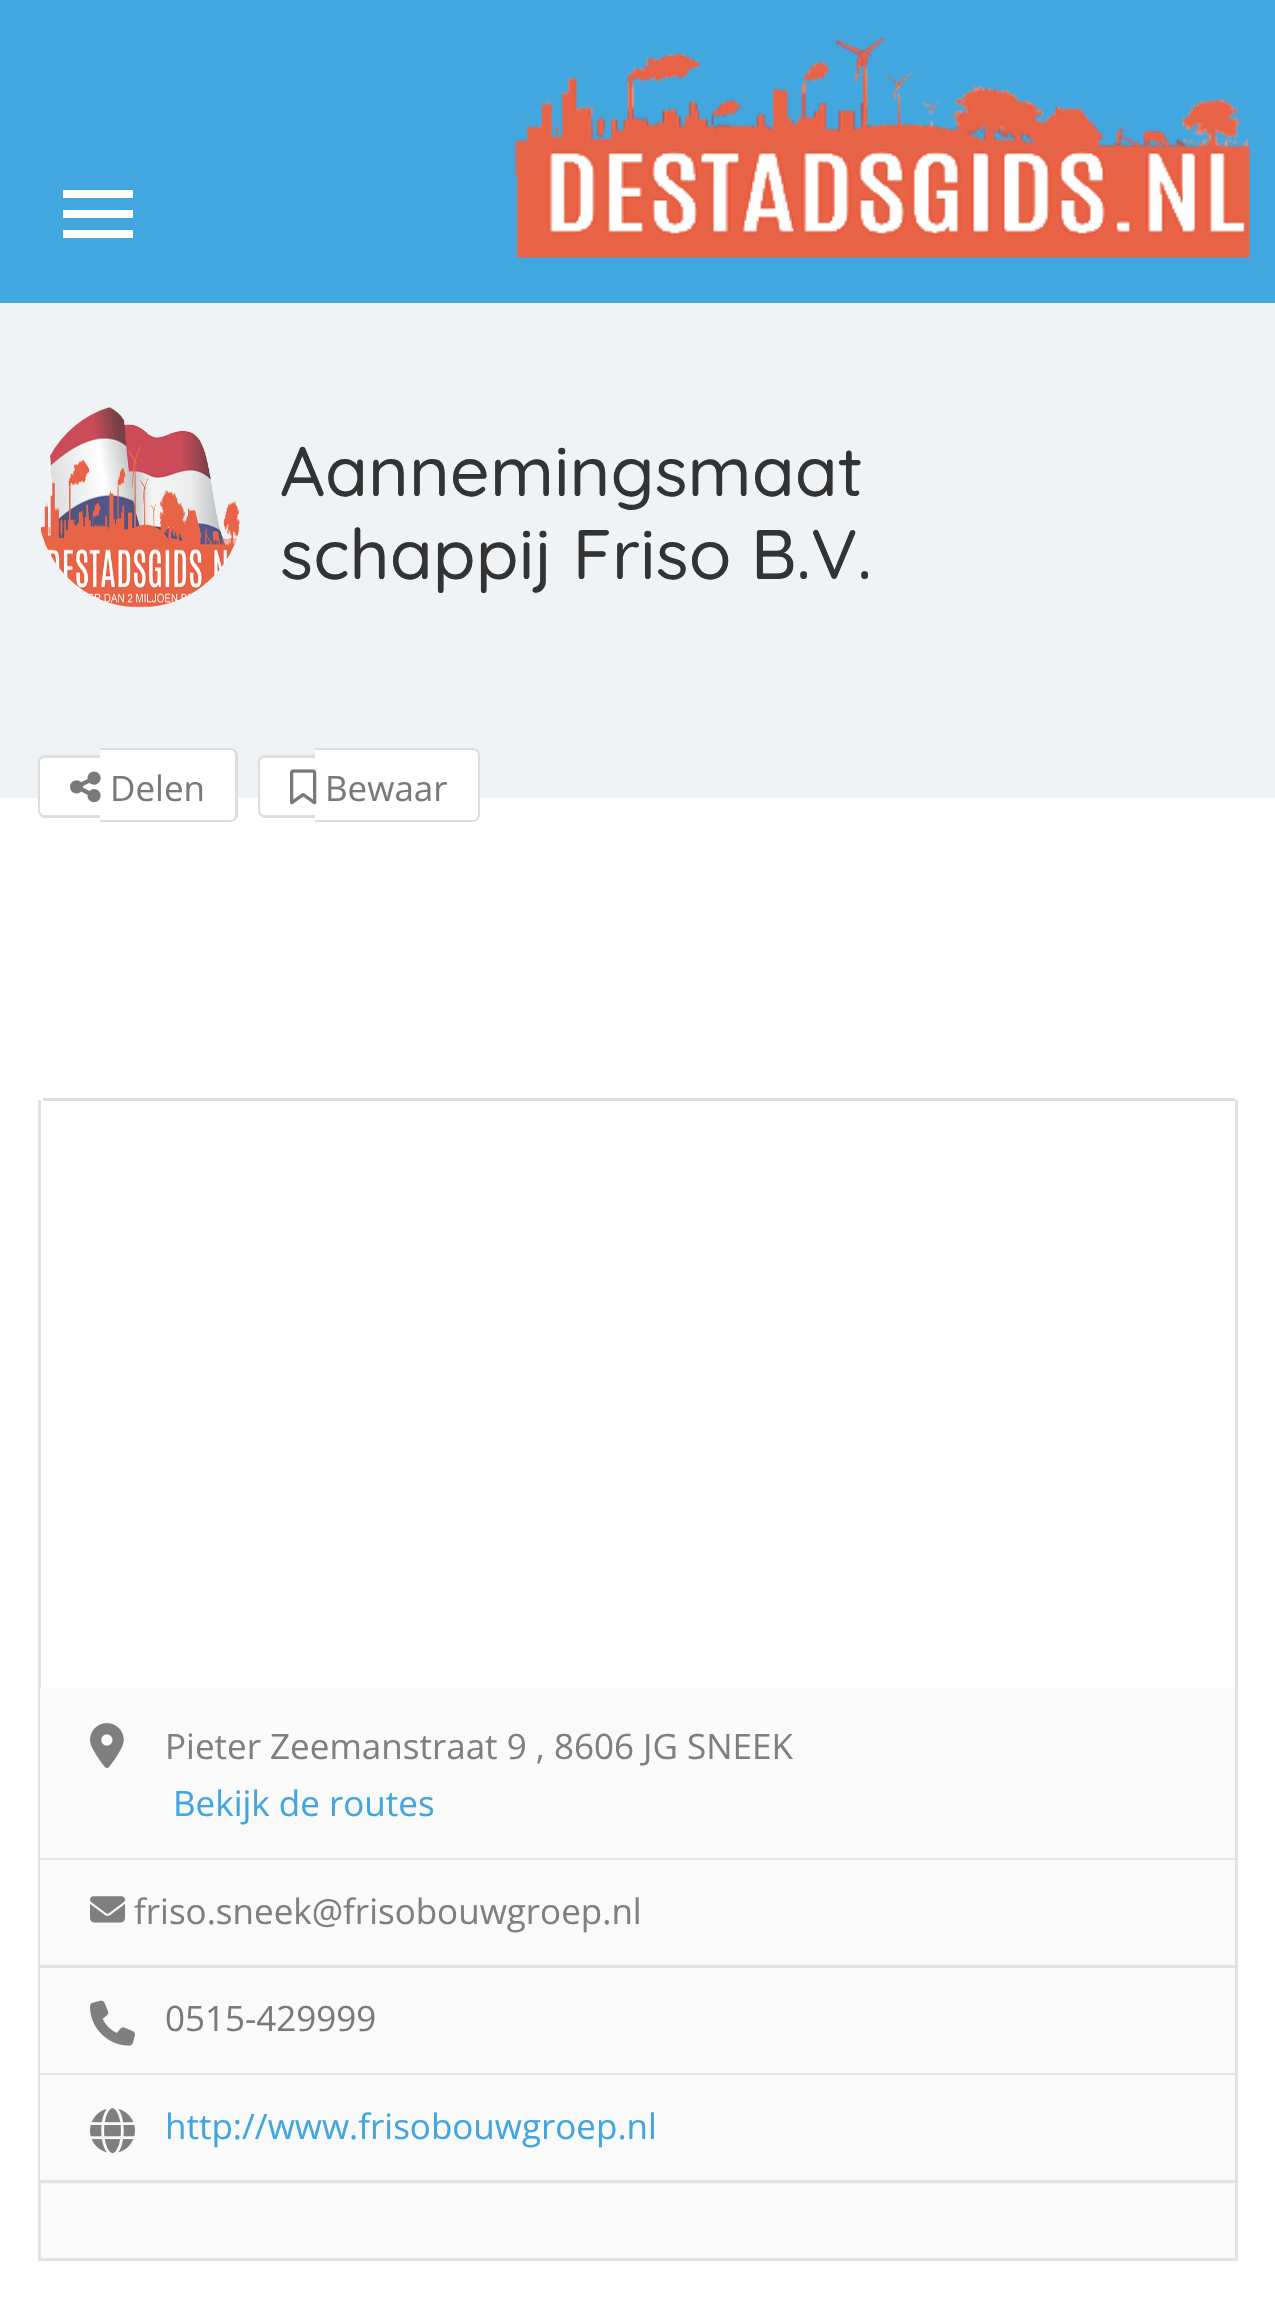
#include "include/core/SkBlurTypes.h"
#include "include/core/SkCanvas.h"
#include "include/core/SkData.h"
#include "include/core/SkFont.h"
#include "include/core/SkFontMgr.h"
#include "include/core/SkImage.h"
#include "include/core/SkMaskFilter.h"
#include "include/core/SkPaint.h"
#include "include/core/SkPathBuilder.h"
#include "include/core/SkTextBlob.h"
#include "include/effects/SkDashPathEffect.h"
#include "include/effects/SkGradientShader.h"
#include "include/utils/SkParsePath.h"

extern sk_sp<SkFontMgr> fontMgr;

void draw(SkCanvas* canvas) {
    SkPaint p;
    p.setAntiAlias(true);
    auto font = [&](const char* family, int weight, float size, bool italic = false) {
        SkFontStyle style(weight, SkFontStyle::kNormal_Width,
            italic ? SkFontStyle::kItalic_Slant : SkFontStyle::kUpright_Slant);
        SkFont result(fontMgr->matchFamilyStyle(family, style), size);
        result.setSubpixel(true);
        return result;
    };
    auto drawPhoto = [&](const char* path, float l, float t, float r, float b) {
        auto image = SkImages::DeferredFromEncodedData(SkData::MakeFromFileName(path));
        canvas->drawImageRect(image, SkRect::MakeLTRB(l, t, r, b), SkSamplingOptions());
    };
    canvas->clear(0xFFFFFFFF);
    {
        const struct { float l, t, r, b; SkColor color; } items[] = {
            {0, 0, 1275, 303, 0xFF42A7DF},
            {63, 190, 133, 198, 0xFFFFFFFF},
            {63, 210, 133, 218, 0xFFFFFFFF},
            {63, 230, 133, 238, 0xFFFFFFFF},
        };
        for (auto [l, t, r, b, color] : items) {
            p.setColor(color);
            canvas->drawRect(SkRect::MakeLTRB(l, t, r, b), p);
        }
    }
    drawPhoto("media/1.png", 515, 37, 1250, 258);
    p.setColor(0xFFF0F3F6);
    canvas->drawRect(SkRect::MakeLTRB(0, 303, 1275, 798), p);
    drawPhoto("media/2.png", 41, 407, 240, 608);
    auto font1 = font("Quicksand", 500, 70);
    p.setColor(0xFF333333);
    canvas->drawString("Aannemingsmaat", 280, 496, font1, p);
    canvas->drawString("schappij Friso B.V.", 280, 579, font1, p);
    p.setColor(0xFFFFFFFF);
    canvas->drawPath(SkPathBuilder().moveTo(46, 755).lineTo(100, 755).lineTo(100, 818).lineTo(46, 818).cubicTo(41.5f, 818, 38, 814.5f, 38, 810).lineTo(38, 763).cubicTo(38, 758.5f, 41.5f, 755, 46, 755).close().detach(), p);
    p.setColor(0xFFDEDEDE);
    canvas->drawPath(SkPathBuilder(SkPathFillType::kEvenOdd).moveTo(45, 755).lineTo(100, 755).lineTo(100, 818).lineTo(45, 818).cubicTo(41, 818, 38, 814, 38, 810).lineTo(38, 762).cubicTo(38, 758, 41, 755, 45, 755).close().moveTo(45, 758).lineTo(100, 758).lineTo(100, 815).lineTo(45, 815).cubicTo(42, 815, 40, 813, 40, 810).lineTo(40, 762).cubicTo(40, 760, 42, 758, 45, 758).close().detach(), p);
    p.setColor(0xFFFFFFFF);
    canvas->drawPath(SkPathBuilder().moveTo(100, 748).lineTo(230, 748).cubicTo(234.5f, 748, 238, 751.5f, 238, 756).lineTo(238, 815).cubicTo(238, 819.5f, 234.5f, 823, 230, 823).lineTo(100, 823).close().detach(), p);
    p.setColor(0xFFDEDEDE);
    canvas->drawPath(SkPathBuilder(SkPathFillType::kEvenOdd).moveTo(100, 748).lineTo(230, 748).cubicTo(234, 748, 238, 751, 238, 755).lineTo(238, 815).cubicTo(238, 819, 234, 822, 230, 822).lineTo(100, 822).close().moveTo(100, 750).lineTo(230, 750).cubicTo(233, 750, 235, 752, 235, 755).lineTo(235, 815).cubicTo(235, 818, 233, 820, 230, 820).lineTo(100, 820).close().detach(), p);
    drawPhoto("media/3.png", 70, 771, 101, 803);
    auto font2 = font("Open Sans", 400, 35);
    p.setColor(0xFF797979);
    canvas->drawString("Delen", 110, 801, font2, p);
    p.setColor(0xFFFFFFFF);
    canvas->drawPath(SkPathBuilder().moveTo(266, 755).lineTo(315, 755).lineTo(315, 818).lineTo(266, 818).cubicTo(261.5f, 818, 258, 814.5f, 258, 810).lineTo(258, 763).cubicTo(258, 758.5f, 261.5f, 755, 266, 755).close().detach(), p);
    p.setColor(0xFFDEDEDE);
    canvas->drawPath(SkPathBuilder(SkPathFillType::kEvenOdd).moveTo(265, 755).lineTo(315, 755).lineTo(315, 818).lineTo(265, 818).cubicTo(261, 818, 258, 814, 258, 810).lineTo(258, 762).cubicTo(258, 758, 261, 755, 265, 755).close().moveTo(265, 758).lineTo(315, 758).lineTo(315, 815).lineTo(265, 815).cubicTo(262, 815, 260, 813, 260, 810).lineTo(260, 762).cubicTo(260, 760, 262, 758, 265, 758).close().detach(), p);
    p.setColor(0xFFFFFFFF);
    canvas->drawPath(SkPathBuilder().moveTo(315, 748).lineTo(472, 748).cubicTo(476.5f, 748, 480, 751.5f, 480, 756).lineTo(480, 815).cubicTo(480, 819.5f, 476.5f, 823, 472, 823).lineTo(315, 823).close().detach(), p);
    p.setColor(0xFFDEDEDE);
    canvas->drawPath(SkPathBuilder(SkPathFillType::kEvenOdd).moveTo(315, 748).lineTo(472, 748).cubicTo(477, 748, 480, 751, 480, 755).lineTo(480, 815).cubicTo(480, 819, 477, 822, 472, 822).lineTo(315, 822).close().moveTo(315, 750).lineTo(472, 750).cubicTo(475, 750, 478, 752, 478, 755).lineTo(478, 815).cubicTo(478, 818, 475, 820, 472, 820).lineTo(315, 820).close().detach(), p);
    drawPhoto("media/4.png", 290, 769, 317, 805);
    p.setColor(0xFF797979);
    canvas->drawString("Bewaar", 325, 801, font2, p);
    {
        const struct { float l, t, r, b; SkColor color; } items[] = {
            {43, 1098, 1235, 1101, 0xFFDEDEDE},
            {1235, 1100, 1238, 2260, 0xFFE3E3E3},
            {38, 2180, 1238, 2183, 0xFFE3E3E3},
            {38, 1100, 41, 2183, 0xFFE3E3E3},
            {40, 1688, 1235, 1858, 0xFFFAFAFA},
            {40, 1858, 1235, 1860, 0xFFE3E3E3},
        };
        for (auto [l, t, r, b, color] : items) {
            p.setColor(color);
            canvas->drawRect(SkRect::MakeLTRB(l, t, r, b), p);
        }
    }
    drawPhoto("media/5.png", 90, 1723, 124, 1768);
    p.setColor(0xFF7F7F7F);
    canvas->drawString("Pieter Zeemanstraat 9 , 8606 JG SNEEK", 165, 1759, font2, p);
    p.setColor(0xFF41A6DF);
    canvas->drawString("Bekijk de routes", 173, 1816, font2, p);
    p.setColor(0xFFFAFAFA);
    canvas->drawRect(SkRect::MakeLTRB(40, 1860, 1235, 1965), p);
    p.setColor(0xFFE3E3E3);
    canvas->drawRect(SkRect::MakeLTRB(40, 1965, 1235, 1968), p);
    drawPhoto("media/6.png", 90, 1896, 125, 1923);
    p.setColor(0xFF7F7F7F);
    canvas->drawString("friso.sneek@frisobouwgroep.nl", 134, 1924, font2, p);
    p.setColor(0xFFFAFAFA);
    canvas->drawRect(SkRect::MakeLTRB(40, 1968, 1235, 2073), p);
    p.setColor(0xFFE3E3E3);
    canvas->drawRect(SkRect::MakeLTRB(40, 2073, 1235, 2075), p);
    drawPhoto("media/7.png", 90, 2000, 135, 2046);
    p.setColor(0xFF797979);
    canvas->drawString("0515-429999", 165, 2031, font2, p);
    p.setColor(0xFFFAFAFA);
    canvas->drawRect(SkRect::MakeLTRB(40, 2075, 1235, 2180), p);
    drawPhoto("media/8.png", 90, 2108, 135, 2154);
    p.setColor(0xFF41A6DF);
    canvas->drawString("http://www.frisobouwgroep.nl", 165, 2139, font2, p);
    {
        const struct { float l, t, r, b; SkColor color; } items[] = {
            {41, 2183, 1235, 2258, 0xFFFAFAFA},
            {38, 2258, 1238, 2261, 0xFFE3E3E3},
            {38, 2183, 41, 2260, 0xFFE3E3E3},
        };
        for (auto [l, t, r, b, color] : items) {
            p.setColor(color);
            canvas->drawRect(SkRect::MakeLTRB(l, t, r, b), p);
        }
    }
}
